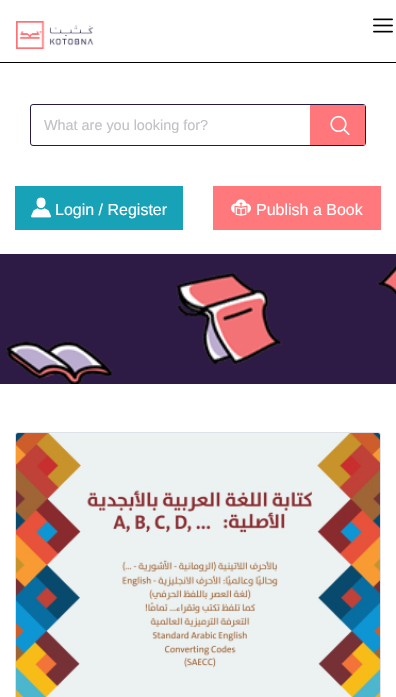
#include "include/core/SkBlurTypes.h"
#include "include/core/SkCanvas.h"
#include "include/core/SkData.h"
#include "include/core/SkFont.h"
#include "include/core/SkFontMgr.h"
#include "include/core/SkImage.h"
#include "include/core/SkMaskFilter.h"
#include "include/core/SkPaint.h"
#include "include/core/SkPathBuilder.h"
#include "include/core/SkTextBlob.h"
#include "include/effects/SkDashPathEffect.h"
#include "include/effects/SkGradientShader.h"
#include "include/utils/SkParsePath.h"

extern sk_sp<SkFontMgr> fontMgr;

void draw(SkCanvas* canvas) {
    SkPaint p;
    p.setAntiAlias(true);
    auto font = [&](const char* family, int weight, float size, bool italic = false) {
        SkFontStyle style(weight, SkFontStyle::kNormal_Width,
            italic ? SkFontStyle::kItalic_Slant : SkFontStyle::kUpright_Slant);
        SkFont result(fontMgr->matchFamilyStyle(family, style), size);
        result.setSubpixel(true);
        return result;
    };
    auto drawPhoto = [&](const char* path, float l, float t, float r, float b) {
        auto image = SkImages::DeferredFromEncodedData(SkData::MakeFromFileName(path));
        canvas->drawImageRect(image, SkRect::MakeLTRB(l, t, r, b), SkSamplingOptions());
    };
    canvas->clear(0xFFFFFFFF);
    drawPhoto("media/1.png", 16, 21, 94, 49);
    drawPhoto("media/2.png", 373, 18, 393, 33);
    p.setColor(0xFF000000);
    canvas->drawRect(SkRect::MakeLTRB(0, 62, 396, 63), p);
    p.setStyle(SkPaint::kStroke_Style);
    p.setStrokeWidth(1);
    p.setColor(0xFF261A42);
    canvas->drawRoundRect(SkRect::MakeLTRB(30.5f, 104.5f, 365.5f, 145.5f), 2.5f, 2.5f, p);
    auto font1 = font("Liberation Sans", 400, 14.4f);
    p.setStyle(SkPaint::kFill_Style);
    p.setColor(0xFFC2C1C7);
    canvas->drawString("What are you looking for?", 44, 130, font1, p);
    p.setColor(0xFFFF777A);
    canvas->drawRect(SkRect::MakeLTRB(310, 105, 365, 145), p);
    drawPhoto("media/3.png", 330, 115, 350, 135);
    p.setColor(0xFF17A2B8);
    canvas->drawRect(SkRect::MakeLTRB(15, 186, 183, 230), p);
    drawPhoto("media/4.png", 31, 197, 51, 218);
    auto font2 = font("Liberation Sans", 400, 16);
    p.setColor(0xFFFFFFFF);
    canvas->drawString("Login / Register", 55, 215, font2, p);
    p.setColor(0xFFFF787B);
    canvas->drawRect(SkRect::MakeLTRB(213, 186, 381, 230), p);
    drawPhoto("media/5.png", 231, 199, 251, 216);
    p.setColor(0xFFFFFFFF);
    canvas->drawString("Publish a Book", 256, 215, font2, p);
    drawPhoto("media/6.png", 0, 254, 396, 384);
    p.setStyle(SkPaint::kStroke_Style);
    p.setColor(0xFFDEE2E6);
    canvas->drawPath(SkPathBuilder().moveTo(18, 432.5f).lineTo(378, 432.5f).cubicTo(379.5f, 432.5f, 380.5f, 433.5f, 380.5f, 435).lineTo(380.5f, 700.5f).lineTo(15.5f, 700.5f).lineTo(15.5f, 435).cubicTo(15.5f, 433.5f, 16.5f, 432.5f, 18, 432.5f).close().detach(), p);
    drawPhoto("media/7.png", 16, 433, 380, 697);
}
